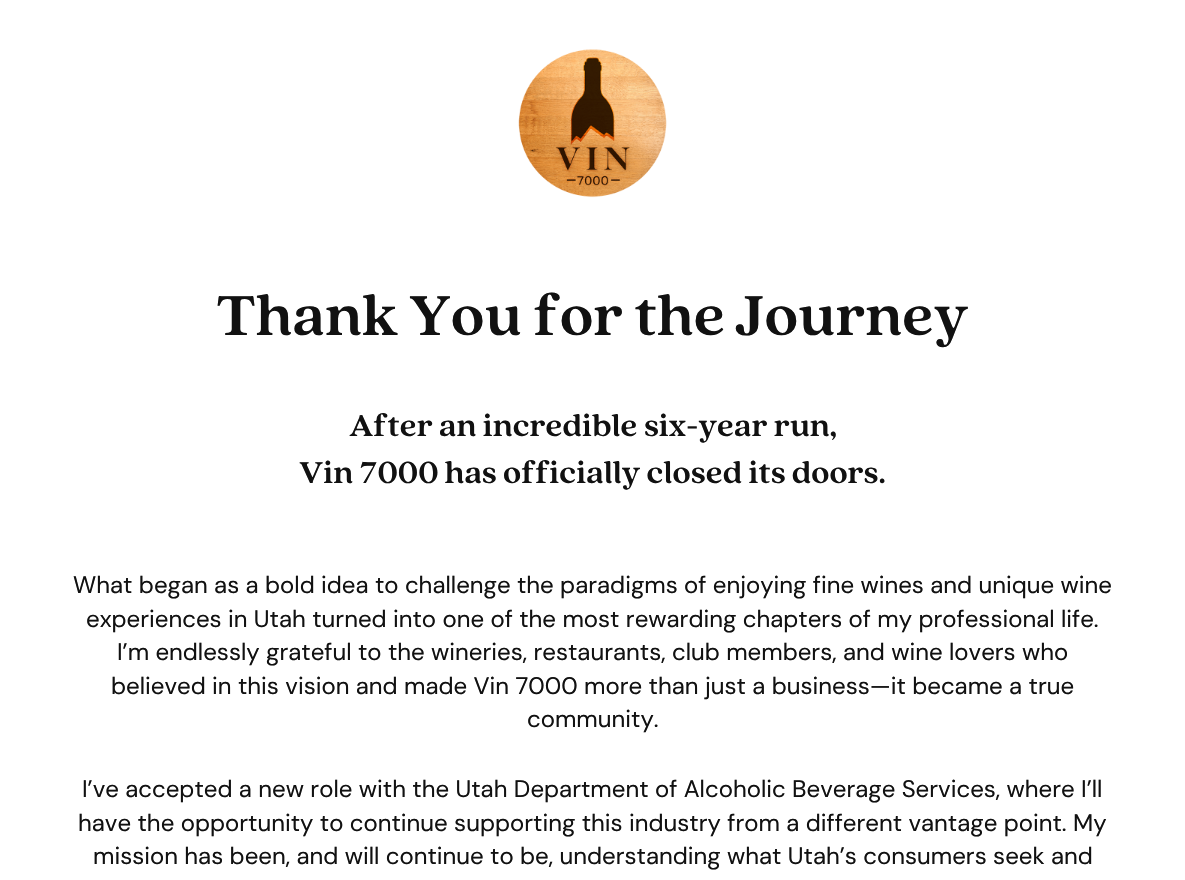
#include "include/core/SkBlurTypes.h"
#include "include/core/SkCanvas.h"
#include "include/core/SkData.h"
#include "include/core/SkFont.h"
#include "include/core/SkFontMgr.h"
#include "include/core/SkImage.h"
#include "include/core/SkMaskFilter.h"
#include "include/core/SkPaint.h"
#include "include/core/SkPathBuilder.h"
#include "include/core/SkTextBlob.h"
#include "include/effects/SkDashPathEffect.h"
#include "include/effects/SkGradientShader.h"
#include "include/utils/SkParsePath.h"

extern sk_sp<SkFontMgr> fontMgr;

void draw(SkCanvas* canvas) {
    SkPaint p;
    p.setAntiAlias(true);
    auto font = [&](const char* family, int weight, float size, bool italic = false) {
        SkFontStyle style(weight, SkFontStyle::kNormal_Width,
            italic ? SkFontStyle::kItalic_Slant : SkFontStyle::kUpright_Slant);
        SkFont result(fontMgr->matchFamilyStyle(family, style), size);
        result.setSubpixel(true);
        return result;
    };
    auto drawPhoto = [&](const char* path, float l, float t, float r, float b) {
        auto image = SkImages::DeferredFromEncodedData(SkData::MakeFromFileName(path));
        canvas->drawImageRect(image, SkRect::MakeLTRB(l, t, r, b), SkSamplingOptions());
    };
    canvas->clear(0xFFFFFFFF);
    drawPhoto("media/1.png", 518, 49, 667, 198);
    auto font1 = font("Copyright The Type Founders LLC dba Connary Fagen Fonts", 700, 62.4f);
    p.setColor(0xFF111111);
    canvas->drawString("Thank You for the Journey", 216, 335, font1, p);
    auto font2 = font("Copyright The Type Founders LLC dba Connary Fagen Fonts", 700, 33.6f);
    canvas->drawString("After an incredible six-year run,", 349, 436, font2, p);
    canvas->drawString("Vin 7000 has officially closed its doors.", 299, 483, font2, p);
    auto font3 = font("DM Sans", 400, 24);
    {
        const struct { const char* s; float x, y; } items[] = {
            {"What began as a bold idea to challenge the paradigms of enjoying fine wines and unique wine", 73, 593},
            {"experiences in Utah turned into one of the most rewarding chapters of my professional life.", 86, 627},
            {"I’m endlessly grateful to the wineries, restaurants, club members, and wine lovers who", 117, 660},
            {"believed in this vision and made Vin 7000 more than just a business—it became a true", 111, 694},
            {"community.", 527, 727},
            {"I’ve accepted a new role with the Utah Department of Alcoholic Beverage Services, where I’ll", 82, 797},
            {"have the opportunity to continue supporting this industry from a different vantage point. My", 78, 831},
            {"mission has been, and will continue to be, understanding what Utah’s consumers seek and", 93, 864},
        };
        for (auto [s, x, y] : items) {
            canvas->drawString(s, x, y, font3, p);
        }
    }
}
